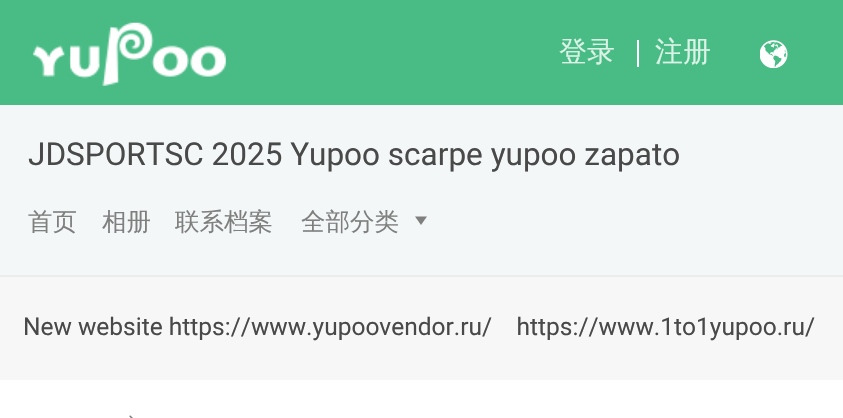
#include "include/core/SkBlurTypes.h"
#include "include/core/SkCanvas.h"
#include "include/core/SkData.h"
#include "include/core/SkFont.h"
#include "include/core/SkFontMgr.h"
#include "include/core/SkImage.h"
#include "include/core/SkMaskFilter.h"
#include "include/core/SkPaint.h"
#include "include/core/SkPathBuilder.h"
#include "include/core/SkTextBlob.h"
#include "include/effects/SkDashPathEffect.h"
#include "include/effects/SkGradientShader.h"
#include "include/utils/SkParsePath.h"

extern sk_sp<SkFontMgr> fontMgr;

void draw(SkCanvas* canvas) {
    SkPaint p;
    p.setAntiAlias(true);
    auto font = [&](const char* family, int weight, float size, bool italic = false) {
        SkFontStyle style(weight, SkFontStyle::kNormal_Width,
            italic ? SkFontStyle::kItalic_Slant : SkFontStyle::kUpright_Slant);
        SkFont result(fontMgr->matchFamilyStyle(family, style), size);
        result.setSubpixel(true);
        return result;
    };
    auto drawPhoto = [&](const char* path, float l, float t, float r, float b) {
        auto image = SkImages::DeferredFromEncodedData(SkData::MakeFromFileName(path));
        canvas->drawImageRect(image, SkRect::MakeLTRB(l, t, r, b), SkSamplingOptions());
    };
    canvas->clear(0xFFFFFFFF);
    p.setColor(0xFF49BC85);
    canvas->drawRect(SkRect::MakeLTRB(0, 0, 843, 105), p);
    drawPhoto("media/1.png", 33, 22, 226, 86);
    auto font1 = font("WenQuanYi Zen Hei", 500, 28);
    p.setColor(0xFFDBF2E7);
    canvas->drawString("登录", 559, 61, font1, p);
    p.setColor(0xFFFFFFFF);
    canvas->drawRect(SkRect::MakeLTRB(637, 40, 639, 67), p);
    p.setColor(0xFFDBF2E7);
    canvas->drawString("注册", 655, 61, font1, p);
    drawPhoto("media/2.png", 760, 40, 788, 68);
    p.setColor(0xFFF3F7F7);
    canvas->drawRect(SkRect::MakeLTRB(0, 105, 843, 275), p);
    auto font2 = font("Roboto", 400, 31.5f);
    p.setColor(0xFF494949);
    canvas->drawString("JDSPORTSC 2025 Yupoo scarpe yupoo zapato", 28, 165, font2, p);
    auto font3 = font("WenQuanYi Zen Hei", 500, 24.5f);
    p.setColor(0xFF7F7F7F);
    {
        const struct { const char* s; float x, y; } items[] = {
            {"首页", 28, 230},
            {"相册", 102, 230},
            {"联系档案", 175, 230},
            {"全部分类", 301, 230},
        };
        for (auto [s, x, y] : items) {
            canvas->drawString(s, x, y, font3, p);
        }
    }
    canvas->drawPath(SkPathBuilder().moveTo(421, 225).lineTo(415, 216.5f).lineTo(427, 216.5f).close().detach(), p);
    p.setColor(0xFFF7F7F7);
    canvas->drawRect(SkRect::MakeLTRB(0, 277, 843, 380), p);
    p.setColor(0xFFECECEC);
    canvas->drawRect(SkRect::MakeLTRB(0, 275, 843, 277), p);
    auto font4 = font("Roboto", 400, 24.5f);
    p.setColor(0xFF494949);
    canvas->drawString("New website https://www.yupoovendor.ru/    https://www.1to1yupoo.ru/", 23, 335, font4, p);
    drawPhoto("media/3.png", 129, 415, 133, 418);
}
